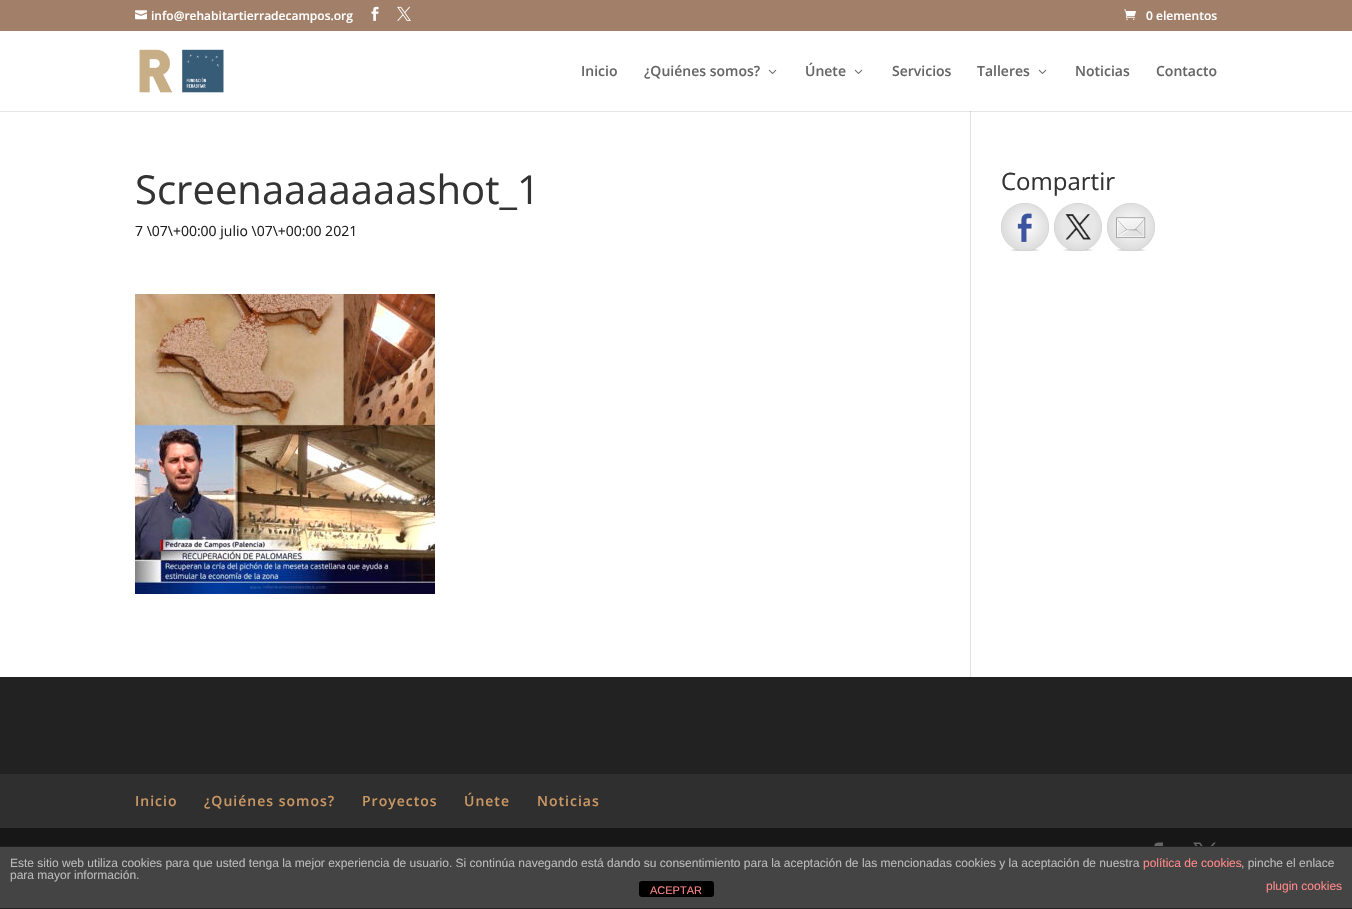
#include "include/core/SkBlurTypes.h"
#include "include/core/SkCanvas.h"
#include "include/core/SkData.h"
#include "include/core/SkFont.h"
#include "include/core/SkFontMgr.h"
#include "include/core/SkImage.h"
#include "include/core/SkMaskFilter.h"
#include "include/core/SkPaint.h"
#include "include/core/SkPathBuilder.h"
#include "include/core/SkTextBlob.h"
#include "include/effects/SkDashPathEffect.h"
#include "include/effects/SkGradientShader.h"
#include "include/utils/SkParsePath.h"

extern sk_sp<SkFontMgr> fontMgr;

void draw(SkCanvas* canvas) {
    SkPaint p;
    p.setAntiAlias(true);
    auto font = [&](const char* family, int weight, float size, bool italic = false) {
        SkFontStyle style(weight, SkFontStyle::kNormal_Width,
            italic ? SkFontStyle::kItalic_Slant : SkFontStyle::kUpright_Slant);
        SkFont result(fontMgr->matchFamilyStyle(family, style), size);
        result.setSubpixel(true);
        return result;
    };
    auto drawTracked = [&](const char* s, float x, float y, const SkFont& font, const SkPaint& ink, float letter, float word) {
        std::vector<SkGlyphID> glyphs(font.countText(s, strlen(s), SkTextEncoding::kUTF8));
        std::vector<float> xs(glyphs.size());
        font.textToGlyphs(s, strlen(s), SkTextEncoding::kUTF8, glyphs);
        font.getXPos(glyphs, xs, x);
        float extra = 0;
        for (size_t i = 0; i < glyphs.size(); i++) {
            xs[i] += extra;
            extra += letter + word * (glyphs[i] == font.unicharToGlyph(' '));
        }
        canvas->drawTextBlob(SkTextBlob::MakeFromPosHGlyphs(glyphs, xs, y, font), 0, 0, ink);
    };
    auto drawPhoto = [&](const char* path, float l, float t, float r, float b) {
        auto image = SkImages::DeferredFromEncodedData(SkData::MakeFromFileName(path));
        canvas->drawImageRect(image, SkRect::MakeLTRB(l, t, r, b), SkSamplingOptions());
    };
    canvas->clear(0xFFFFFFFF);
    p.setColor(0xFFE6E6E6);
    canvas->drawRect(SkRect::MakeLTRB(0, 111, 1352, 112), p);
    p.setColor(0xFFA17F69);
    canvas->drawRect(SkRect::MakeLTRB(0, 0, 1352, 31), p);
    drawPhoto("media/1.png", 135, 10, 147, 20);
    auto font1 = font("Open Sans", 600, 12);
    p.setColor(0xFFFFFFFF);
    canvas->drawString("info@rehabitartierradecampos.org", 151, 20, font1, p);
    drawPhoto("media/2.png", 371, 6, 379, 21);
    drawPhoto("media/3.png", 397, 6, 411, 21);
    drawPhoto("media/4.png", 1124, 9, 1136, 20);
    canvas->drawString("0 elementos", 1146, 20, font1, p);
    drawPhoto("media/5.png", 139, 49, 224, 93);
    auto font2 = font("Open Sans", 600, 14);
    p.setColor(0xFF666666);
    canvas->drawString("Inicio", 581, 76, font2, p);
    canvas->drawString("¿Quiénes somos?", 644, 76, font2, p);
    drawPhoto("media/6.png", 768, 69, 777, 74);
    canvas->drawString("Únete", 805, 76, font2, p);
    drawPhoto("media/6.png", 854, 69, 863, 74);
    canvas->drawString("Servicios", 892, 76, font2, p);
    canvas->drawString("Talleres", 977, 76, font2, p);
    drawPhoto("media/6.png", 1038, 69, 1047, 74);
    canvas->drawString("Noticias", 1075, 76, font2, p);
    canvas->drawString("Contacto", 1156, 76, font2, p);
    p.setColor(0xFFE2E2E2);
    canvas->drawRect(SkRect::MakeLTRB(970, 111, 971, 677), p);
    p.setColor(0xFFCBCBCB);
    canvas->drawRect(SkRect::MakeLTRB(970, 111, 971, 112), p);
    auto font3 = font("Open Sans", 400, 40);
    p.setColor(0xFF333333);
    canvas->drawString("Screenaaaaaaashot_1", 135, 204, font3, p);
    auto font4 = font("Open Sans", 400, 14);
    p.setColor(0xFF1E1E1E);
    canvas->drawString("7 \\07\\+00:00 julio \\07\\+00:00 2021", 135, 236, font4, p);
    drawPhoto("media/7.png", 135, 294, 435, 594);
    auto font5 = font("Open Sans", 400, 24);
    p.setColor(0xFF333333);
    canvas->drawString("Compartir", 1001, 190, font5, p);
    drawPhoto("media/8.png", 1001, 203, 1049, 251);
    drawPhoto("media/9.png", 1054, 203, 1102, 251);
    drawPhoto("media/10.png", 1107, 203, 1155, 251);
    p.setColor(0xFF222222);
    canvas->drawRect(SkRect::MakeLTRB(0, 677, 1352, 774), p);
    p.setColor(0xFF2F2F2F);
    canvas->drawRect(SkRect::MakeLTRB(0, 774, 1352, 828), p);
    p.setColor(0xFFC99764);
    {
        const struct { const char* s; float x, y; } items[] = {
            {"Inicio", 135, 806},
            {"¿Quiénes somos?", 204, 806},
            {"Proyectos", 362, 806},
            {"Únete", 464, 806},
            {"Noticias", 537, 806},
        };
        for (auto [s, x, y] : items) {
            drawTracked(s, x, y, font2, p, 1, 0);
        }
    }
    p.setColor(0xFF171717);
    canvas->drawRect(SkRect::MakeLTRB(0, 828, 1352, 846), p);
    drawPhoto("media/11.png", 1154, 842, 1163, 846);
    drawPhoto("media/12.png", 1193, 842, 1216, 846);
    {
        const struct { float l, t, r, b; SkColor color; } items[] = {
            {0, 847, 1352, 908, 0xFF444444},
            {0, 846, 1352, 847, 0xFF222222},
            {0, 908, 1352, 909, 0xFF222222},
        };
        for (auto [l, t, r, b, color] : items) {
            p.setColor(color);
            canvas->drawRect(SkRect::MakeLTRB(l, t, r, b), p);
        }
    }
    auto font6 = font("Liberation Sans", 400, 12);
    p.setColor(0xFFBBBBBB);
    canvas->drawString("Este sitio web utiliza cookies para que usted tenga la mejor experiencia de usuario. Si continúa navegando está dando su consentimiento para la aceptación de las mencionadas cookies y la aceptación de nuestra", 10, 867, font6, p);
    p.setColor(0xFFFF8888);
    canvas->drawString("política de cookies", 1143, 867, font6, p);
    p.setColor(0xFFBBBBBB);
    canvas->drawString(", pinche el enlace", 1241, 867, font6, p);
    canvas->drawString("para mayor información.", 10, 879, font6, p);
    p.setColor(0xFFFF8888);
    canvas->drawString("plugin cookies", 1266, 890, font6, p);
    p.setColor(0xFF000000);
    canvas->drawRoundRect(SkRect::MakeLTRB(639, 881, 714, 897), 3, 3, p);
    auto font7 = font("Liberation Sans", 400, 11);
    p.setColor(0xFFFF8888);
    canvas->drawString("ACEPTAR", 650, 894, font7, p);
}
